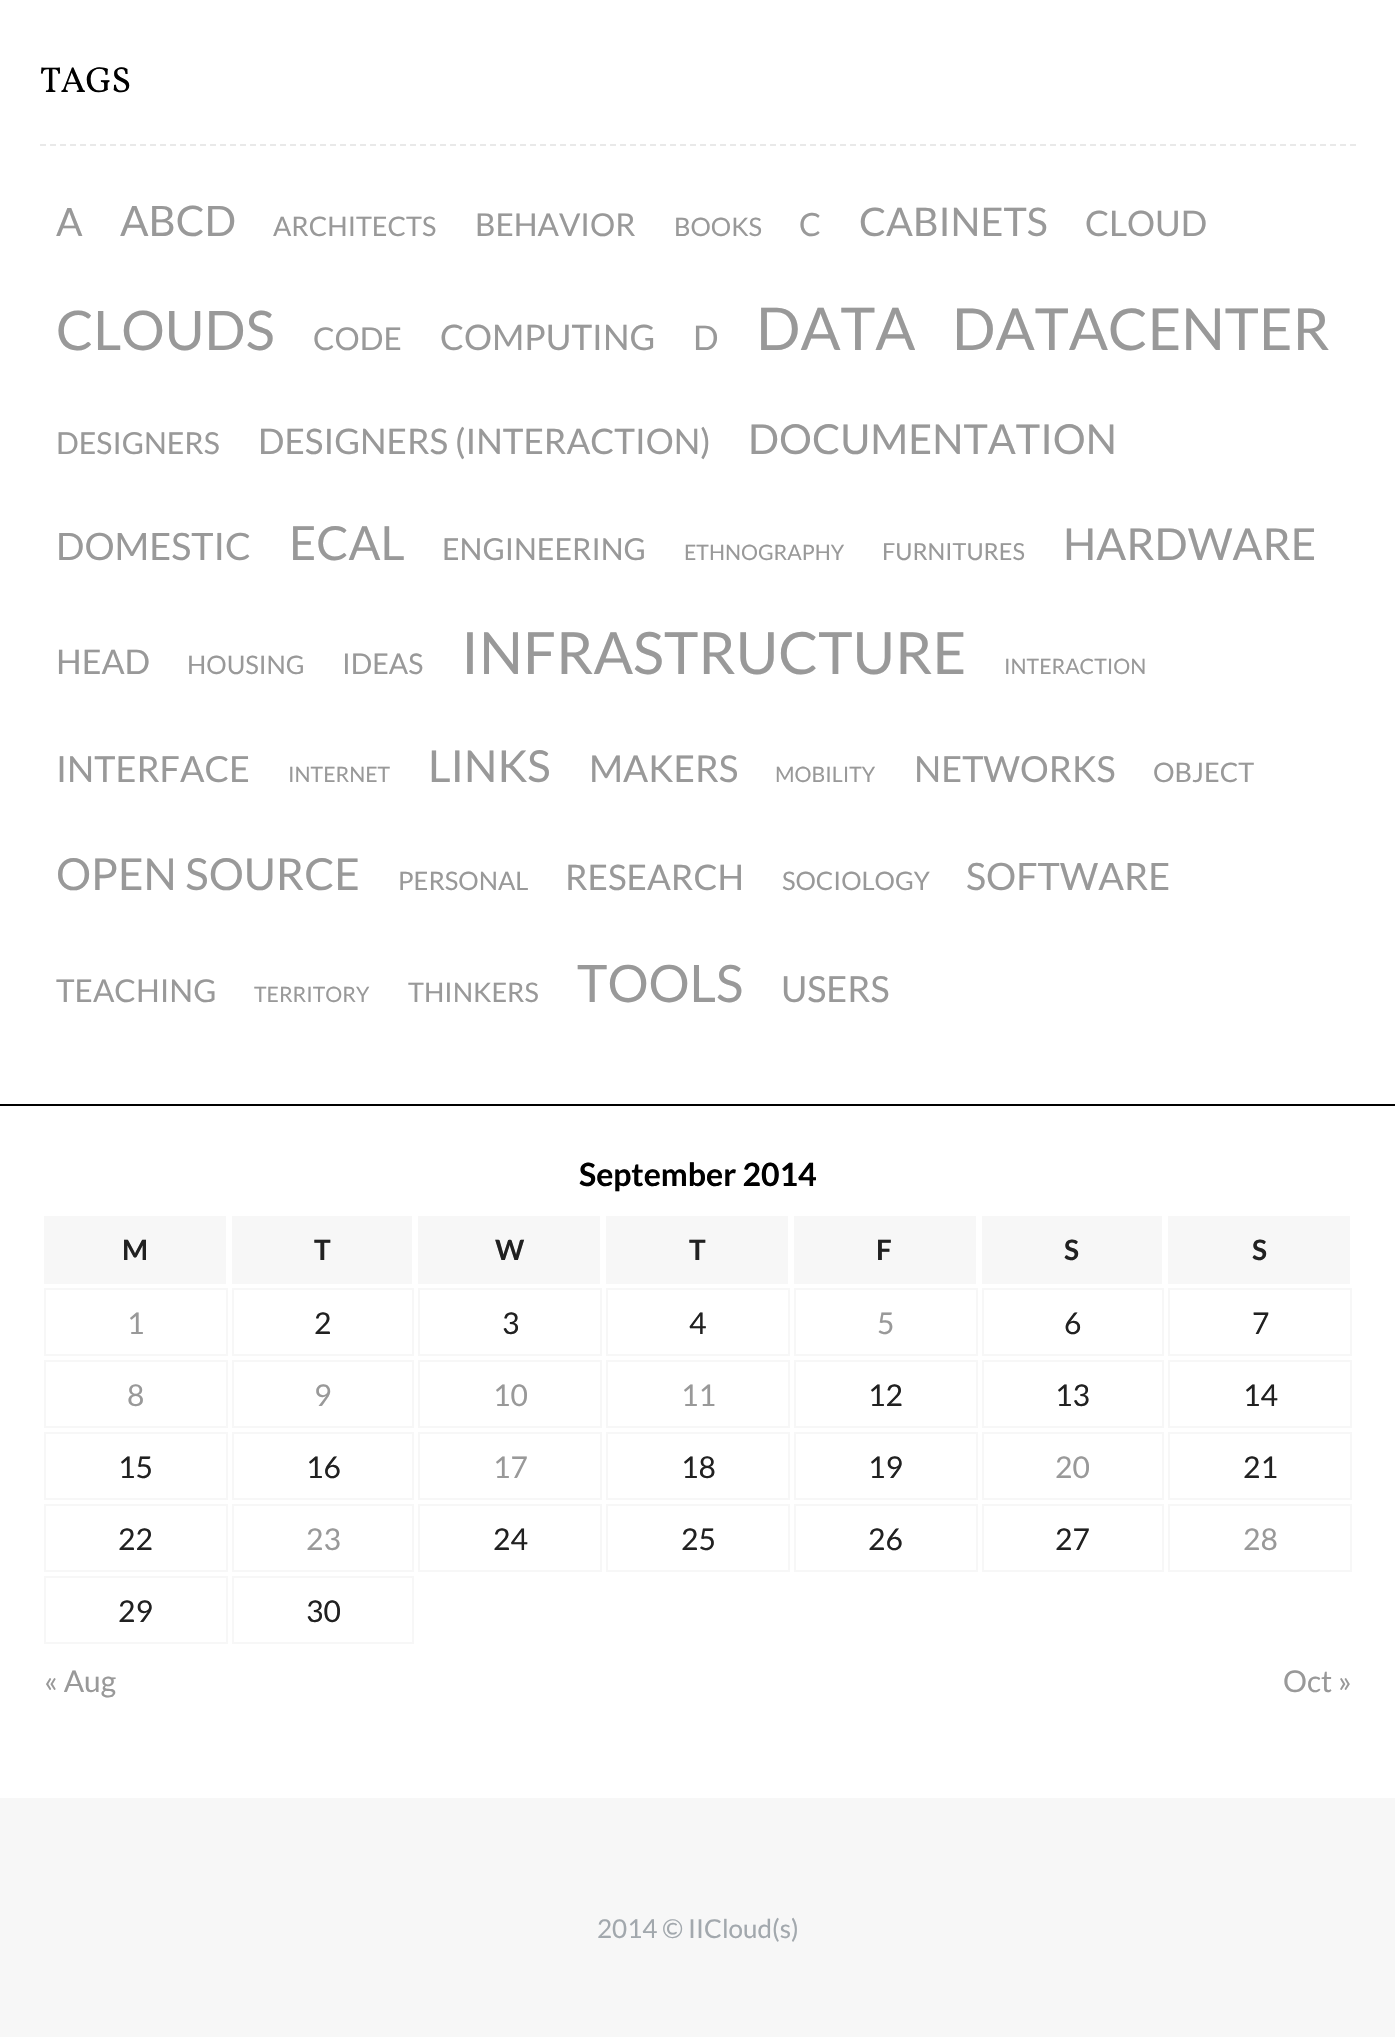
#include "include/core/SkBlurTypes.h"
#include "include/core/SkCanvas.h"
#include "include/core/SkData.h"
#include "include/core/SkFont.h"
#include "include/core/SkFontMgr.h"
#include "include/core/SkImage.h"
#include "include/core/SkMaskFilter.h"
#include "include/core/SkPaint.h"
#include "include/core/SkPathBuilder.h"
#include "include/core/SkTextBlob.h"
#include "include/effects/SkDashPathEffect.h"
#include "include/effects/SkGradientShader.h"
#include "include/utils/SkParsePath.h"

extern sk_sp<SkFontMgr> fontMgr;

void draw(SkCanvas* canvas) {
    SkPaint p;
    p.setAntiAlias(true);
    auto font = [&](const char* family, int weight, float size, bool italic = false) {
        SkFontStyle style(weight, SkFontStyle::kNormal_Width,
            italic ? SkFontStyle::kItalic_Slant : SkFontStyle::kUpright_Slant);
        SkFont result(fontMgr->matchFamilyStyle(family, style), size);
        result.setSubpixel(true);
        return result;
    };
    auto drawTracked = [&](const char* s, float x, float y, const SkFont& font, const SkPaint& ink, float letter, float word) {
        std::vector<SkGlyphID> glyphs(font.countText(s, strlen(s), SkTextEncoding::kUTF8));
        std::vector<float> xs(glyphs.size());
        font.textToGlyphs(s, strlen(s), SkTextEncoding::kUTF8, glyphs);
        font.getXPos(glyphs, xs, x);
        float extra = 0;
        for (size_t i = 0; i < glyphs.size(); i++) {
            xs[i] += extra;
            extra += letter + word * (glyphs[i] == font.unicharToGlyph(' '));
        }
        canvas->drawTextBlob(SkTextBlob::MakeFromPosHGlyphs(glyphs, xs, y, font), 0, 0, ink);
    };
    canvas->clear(0xFFFFFFFF);
    p.setStyle(SkPaint::kStroke_Style);
    p.setStrokeWidth(2);
    p.setColor(0xFFE9E9E9);
    p.setPathEffect(SkDashPathEffect::Make({{6, 4}}, 0));
    canvas->drawPath(SkPathBuilder().moveTo(40, 145).lineTo(1356, 145).detach(), p);
    p.setPathEffect(nullptr);
    auto font1 = font("Vollkorn", 400, 36);
    p.setStyle(SkPaint::kFill_Style);
    p.setColor(0xFF000000);
    drawTracked("TAGS", 40, 92, font1, p, -0.5f, 0);
    auto font2 = font("Lato", 400, 39);
    p.setColor(0xFF999999);
    canvas->drawString("A", 56, 236, font2, p);
    auto font3 = font("Lato", 400, 42);
    canvas->drawString("ABCD", 120, 236, font3, p);
    auto font4 = font("Lato", 400, 27);
    canvas->drawString("ARCHITECTS", 273, 236, font4, p);
    auto font5 = font("Lato", 400, 31.5f);
    canvas->drawString("BEHAVIOR", 475, 236, font5, p);
    auto font6 = font("Lato", 400, 25.5f);
    canvas->drawString("BOOKS", 674, 236, font6, p);
    auto font7 = font("Lato", 400, 32);
    canvas->drawString("C", 799, 236, font7, p);
    auto font8 = font("Lato", 400, 39.5f);
    canvas->drawString("CABINETS", 859, 236, font8, p);
    auto font9 = font("Lato", 400, 35.1f);
    canvas->drawString("CLOUD", 1085, 236, font9, p);
    auto font10 = font("Lato", 400, 54.5f);
    canvas->drawString("CLOUDS", 56, 350, font10, p);
    canvas->drawString("CODE", 313, 350, font5, p);
    canvas->drawString("COMPUTING", 440, 350, font9, p);
    auto font11 = font("Lato", 400, 34);
    canvas->drawString("D", 693, 350, font11, p);
    auto font12 = font("Lato", 400, 59);
    canvas->drawString("DATA", 756, 350, font12, p);
    auto font13 = font("Lato", 400, 57.75f);
    canvas->drawString("DATACENTER", 952, 350, font13, p);
    auto font14 = font("Lato", 400, 30.25f);
    canvas->drawString("DESIGNERS", 56, 454, font14, p);
    canvas->drawString("DESIGNERS (INTERACTION)", 258, 454, font9, p);
    auto font15 = font("Lato", 400, 41.25f);
    canvas->drawString("DOCUMENTATION", 748, 454, font15, p);
    auto font16 = font("Lato", 400, 37.75f);
    canvas->drawString("DOMESTIC", 56, 560, font16, p);
    auto font17 = font("Lato", 400, 47);
    canvas->drawString("ECAL", 289, 560, font17, p);
    canvas->drawString("ENGINEERING", 442, 560, font14, p);
    auto font18 = font("Lato", 400, 21.25f);
    canvas->drawString("ETHNOGRAPHY", 684, 560, font18, p);
    auto font19 = font("Lato", 400, 23.5f);
    canvas->drawString("FURNITURES", 882, 560, font19, p);
    auto font20 = font("Lato", 400, 44);
    canvas->drawString("HARDWARE", 1063, 560, font20, p);
    canvas->drawString("HEAD", 56, 674, font11, p);
    canvas->drawString("HOUSING", 187, 674, font6, p);
    auto font21 = font("Lato", 400, 28.5f);
    canvas->drawString("IDEAS", 342, 674, font21, p);
    auto font22 = font("Lato", 400, 58.25f);
    canvas->drawString("INFRASTRUCTURE", 461, 674, font22, p);
    canvas->drawString("INTERACTION", 1004, 674, font18, p);
    auto font23 = font("Lato", 400, 36);
    canvas->drawString("INTERFACE", 56, 782, font23, p);
    canvas->drawString("INTERNET", 288, 782, font18, p);
    canvas->drawString("LINKS", 428, 782, font20, p);
    auto font24 = font("Lato", 400, 37);
    canvas->drawString("MAKERS", 589, 782, font24, p);
    canvas->drawString("MOBILITY", 775, 782, font18, p);
    canvas->drawString("NETWORKS", 914, 782, font23, p);
    canvas->drawString("OBJECT", 1153, 782, font4, p);
    canvas->drawString("OPEN SOURCE", 56, 890, font20, p);
    canvas->drawString("PERSONAL", 398, 890, font6, p);
    canvas->drawString("RESEARCH", 565, 890, font9, p);
    canvas->drawString("SOCIOLOGY", 782, 890, font6, p);
    canvas->drawString("SOFTWARE", 966, 890, font16, p);
    canvas->drawString("TEACHING", 56, 1002, font5, p);
    canvas->drawString("TERRITORY", 254, 1002, font18, p);
    canvas->drawString("THINKERS", 408, 1002, font4, p);
    auto font25 = font("Lato", 400, 51.5f);
    canvas->drawString("TOOLS", 577, 1002, font25, p);
    canvas->drawString("USERS", 781, 1002, font23, p);
    p.setColor(0xFF000000);
    canvas->drawRect(SkRect::MakeLTRB(0, 1104, 1395, 1106), p);
    auto font26 = font("Lato", 700, 32);
    canvas->drawString("September 2014", 579, 1186, font26, p);
    p.setColor(0xFFF7F7F7);
    canvas->drawRect(SkRect::MakeLTRB(44, 1216, 226, 1284), p);
    auto font27 = font("Lato", 700, 28);
    p.setColor(0xFF212121);
    canvas->drawString("M", 122, 1260, font27, p);
    p.setColor(0xFFF7F7F7);
    canvas->drawRect(SkRect::MakeLTRB(232, 1216, 412, 1284), p);
    p.setColor(0xFF212121);
    canvas->drawString("T", 314, 1260, font27, p);
    p.setColor(0xFFF7F7F7);
    canvas->drawRect(SkRect::MakeLTRB(418, 1216, 600, 1284), p);
    p.setColor(0xFF212121);
    canvas->drawString("W", 495, 1260, font27, p);
    p.setColor(0xFFF7F7F7);
    canvas->drawRect(SkRect::MakeLTRB(606, 1216, 788, 1284), p);
    p.setColor(0xFF212121);
    canvas->drawString("T", 689, 1260, font27, p);
    p.setColor(0xFFF7F7F7);
    canvas->drawRect(SkRect::MakeLTRB(794, 1216, 976, 1284), p);
    p.setColor(0xFF212121);
    canvas->drawString("F", 876, 1260, font27, p);
    p.setColor(0xFFF7F7F7);
    canvas->drawRect(SkRect::MakeLTRB(982, 1216, 1162, 1284), p);
    p.setColor(0xFF212121);
    canvas->drawString("S", 1064, 1260, font27, p);
    p.setColor(0xFFF7F7F7);
    canvas->drawRect(SkRect::MakeLTRB(1168, 1216, 1350, 1284), p);
    p.setColor(0xFF212121);
    canvas->drawString("S", 1252, 1260, font27, p);
    p.setStyle(SkPaint::kStroke_Style);
    p.setColor(0xFFF7F7F7);
    canvas->drawRect(SkRect::MakeLTRB(45, 1289, 227, 1355), p);
    auto font28 = font("Lato", 400, 30);
    p.setStyle(SkPaint::kFill_Style);
    p.setColor(0xFF999999);
    canvas->drawString("1", 127, 1334, font28, p);
    p.setStyle(SkPaint::kStroke_Style);
    p.setColor(0xFFF7F7F7);
    canvas->drawRect(SkRect::MakeLTRB(233, 1289, 413, 1355), p);
    p.setStyle(SkPaint::kFill_Style);
    p.setColor(0xFF212121);
    canvas->drawString("2", 314, 1334, font28, p);
    p.setStyle(SkPaint::kStroke_Style);
    p.setColor(0xFFF7F7F7);
    canvas->drawRect(SkRect::MakeLTRB(419, 1289, 601, 1355), p);
    p.setStyle(SkPaint::kFill_Style);
    p.setColor(0xFF212121);
    canvas->drawString("3", 502, 1334, font28, p);
    p.setStyle(SkPaint::kStroke_Style);
    p.setColor(0xFFF7F7F7);
    canvas->drawRect(SkRect::MakeLTRB(607, 1289, 789, 1355), p);
    p.setStyle(SkPaint::kFill_Style);
    p.setColor(0xFF212121);
    canvas->drawString("4", 689, 1334, font28, p);
    p.setStyle(SkPaint::kStroke_Style);
    p.setColor(0xFFF7F7F7);
    canvas->drawRect(SkRect::MakeLTRB(795, 1289, 977, 1355), p);
    p.setStyle(SkPaint::kFill_Style);
    p.setColor(0xFF999999);
    canvas->drawString("5", 877, 1334, font28, p);
    p.setStyle(SkPaint::kStroke_Style);
    p.setColor(0xFFF7F7F7);
    canvas->drawRect(SkRect::MakeLTRB(983, 1289, 1163, 1355), p);
    p.setStyle(SkPaint::kFill_Style);
    p.setColor(0xFF212121);
    canvas->drawString("6", 1064, 1334, font28, p);
    p.setStyle(SkPaint::kStroke_Style);
    p.setColor(0xFFF7F7F7);
    canvas->drawRect(SkRect::MakeLTRB(1169, 1289, 1351, 1355), p);
    p.setStyle(SkPaint::kFill_Style);
    p.setColor(0xFF212121);
    canvas->drawString("7", 1252, 1334, font28, p);
    p.setStyle(SkPaint::kStroke_Style);
    p.setColor(0xFFF7F7F7);
    canvas->drawRect(SkRect::MakeLTRB(45, 1361, 227, 1427), p);
    p.setStyle(SkPaint::kFill_Style);
    p.setColor(0xFF999999);
    canvas->drawString("8", 127, 1406, font28, p);
    p.setStyle(SkPaint::kStroke_Style);
    p.setColor(0xFFF7F7F7);
    canvas->drawRect(SkRect::MakeLTRB(233, 1361, 413, 1427), p);
    p.setStyle(SkPaint::kFill_Style);
    p.setColor(0xFF999999);
    canvas->drawString("9", 314, 1406, font28, p);
    p.setStyle(SkPaint::kStroke_Style);
    p.setColor(0xFFF7F7F7);
    canvas->drawRect(SkRect::MakeLTRB(419, 1361, 601, 1427), p);
    p.setStyle(SkPaint::kFill_Style);
    p.setColor(0xFF999999);
    canvas->drawString("10", 493, 1406, font28, p);
    p.setStyle(SkPaint::kStroke_Style);
    p.setColor(0xFFF7F7F7);
    canvas->drawRect(SkRect::MakeLTRB(607, 1361, 789, 1427), p);
    p.setStyle(SkPaint::kFill_Style);
    p.setColor(0xFF999999);
    canvas->drawString("11", 681, 1406, font28, p);
    p.setStyle(SkPaint::kStroke_Style);
    p.setColor(0xFFF7F7F7);
    canvas->drawRect(SkRect::MakeLTRB(795, 1361, 977, 1427), p);
    p.setStyle(SkPaint::kFill_Style);
    p.setColor(0xFF212121);
    canvas->drawString("12", 868, 1406, font28, p);
    p.setStyle(SkPaint::kStroke_Style);
    p.setColor(0xFFF7F7F7);
    canvas->drawRect(SkRect::MakeLTRB(983, 1361, 1163, 1427), p);
    p.setStyle(SkPaint::kFill_Style);
    p.setColor(0xFF212121);
    canvas->drawString("13", 1055, 1406, font28, p);
    p.setStyle(SkPaint::kStroke_Style);
    p.setColor(0xFFF7F7F7);
    canvas->drawRect(SkRect::MakeLTRB(1169, 1361, 1351, 1427), p);
    p.setStyle(SkPaint::kFill_Style);
    p.setColor(0xFF212121);
    canvas->drawString("14", 1243, 1406, font28, p);
    p.setStyle(SkPaint::kStroke_Style);
    p.setColor(0xFFF7F7F7);
    canvas->drawRect(SkRect::MakeLTRB(45, 1433, 227, 1499), p);
    p.setStyle(SkPaint::kFill_Style);
    p.setColor(0xFF212121);
    canvas->drawString("15", 118, 1478, font28, p);
    p.setStyle(SkPaint::kStroke_Style);
    p.setColor(0xFFF7F7F7);
    canvas->drawRect(SkRect::MakeLTRB(233, 1433, 413, 1499), p);
    p.setStyle(SkPaint::kFill_Style);
    p.setColor(0xFF212121);
    canvas->drawString("16", 306, 1478, font28, p);
    p.setStyle(SkPaint::kStroke_Style);
    p.setColor(0xFFF7F7F7);
    canvas->drawRect(SkRect::MakeLTRB(419, 1433, 601, 1499), p);
    p.setStyle(SkPaint::kFill_Style);
    p.setColor(0xFF999999);
    canvas->drawString("17", 493, 1478, font28, p);
    p.setStyle(SkPaint::kStroke_Style);
    p.setColor(0xFFF7F7F7);
    canvas->drawRect(SkRect::MakeLTRB(607, 1433, 789, 1499), p);
    p.setStyle(SkPaint::kFill_Style);
    p.setColor(0xFF212121);
    canvas->drawString("18", 681, 1478, font28, p);
    p.setStyle(SkPaint::kStroke_Style);
    p.setColor(0xFFF7F7F7);
    canvas->drawRect(SkRect::MakeLTRB(795, 1433, 977, 1499), p);
    p.setStyle(SkPaint::kFill_Style);
    p.setColor(0xFF212121);
    canvas->drawString("19", 868, 1478, font28, p);
    p.setStyle(SkPaint::kStroke_Style);
    p.setColor(0xFFF7F7F7);
    canvas->drawRect(SkRect::MakeLTRB(983, 1433, 1163, 1499), p);
    p.setStyle(SkPaint::kFill_Style);
    p.setColor(0xFF999999);
    canvas->drawString("20", 1055, 1478, font28, p);
    p.setStyle(SkPaint::kStroke_Style);
    p.setColor(0xFFF7F7F7);
    canvas->drawRect(SkRect::MakeLTRB(1169, 1433, 1351, 1499), p);
    p.setStyle(SkPaint::kFill_Style);
    p.setColor(0xFF212121);
    canvas->drawString("21", 1243, 1478, font28, p);
    p.setStyle(SkPaint::kStroke_Style);
    p.setColor(0xFFF7F7F7);
    canvas->drawRect(SkRect::MakeLTRB(45, 1505, 227, 1571), p);
    p.setStyle(SkPaint::kFill_Style);
    p.setColor(0xFF212121);
    canvas->drawString("22", 118, 1550, font28, p);
    p.setStyle(SkPaint::kStroke_Style);
    p.setColor(0xFFF7F7F7);
    canvas->drawRect(SkRect::MakeLTRB(233, 1505, 413, 1571), p);
    p.setStyle(SkPaint::kFill_Style);
    p.setColor(0xFF999999);
    canvas->drawString("23", 306, 1550, font28, p);
    p.setStyle(SkPaint::kStroke_Style);
    p.setColor(0xFFF7F7F7);
    canvas->drawRect(SkRect::MakeLTRB(419, 1505, 601, 1571), p);
    p.setStyle(SkPaint::kFill_Style);
    p.setColor(0xFF212121);
    canvas->drawString("24", 493, 1550, font28, p);
    p.setStyle(SkPaint::kStroke_Style);
    p.setColor(0xFFF7F7F7);
    canvas->drawRect(SkRect::MakeLTRB(607, 1505, 789, 1571), p);
    p.setStyle(SkPaint::kFill_Style);
    p.setColor(0xFF212121);
    canvas->drawString("25", 681, 1550, font28, p);
    p.setStyle(SkPaint::kStroke_Style);
    p.setColor(0xFFF7F7F7);
    canvas->drawRect(SkRect::MakeLTRB(795, 1505, 977, 1571), p);
    p.setStyle(SkPaint::kFill_Style);
    p.setColor(0xFF212121);
    canvas->drawString("26", 868, 1550, font28, p);
    p.setStyle(SkPaint::kStroke_Style);
    p.setColor(0xFFF7F7F7);
    canvas->drawRect(SkRect::MakeLTRB(983, 1505, 1163, 1571), p);
    p.setStyle(SkPaint::kFill_Style);
    p.setColor(0xFF212121);
    canvas->drawString("27", 1055, 1550, font28, p);
    p.setStyle(SkPaint::kStroke_Style);
    p.setColor(0xFFF7F7F7);
    canvas->drawRect(SkRect::MakeLTRB(1169, 1505, 1351, 1571), p);
    p.setStyle(SkPaint::kFill_Style);
    p.setColor(0xFF999999);
    canvas->drawString("28", 1243, 1550, font28, p);
    p.setStyle(SkPaint::kStroke_Style);
    p.setColor(0xFFF7F7F7);
    canvas->drawRect(SkRect::MakeLTRB(45, 1577, 227, 1643), p);
    p.setStyle(SkPaint::kFill_Style);
    p.setColor(0xFF212121);
    canvas->drawString("29", 118, 1622, font28, p);
    p.setStyle(SkPaint::kStroke_Style);
    p.setColor(0xFFF7F7F7);
    canvas->drawRect(SkRect::MakeLTRB(233, 1577, 413, 1643), p);
    p.setStyle(SkPaint::kFill_Style);
    p.setColor(0xFF212121);
    canvas->drawString("30", 306, 1622, font28, p);
    p.setColor(0xFF999999);
    canvas->drawString("« Aug", 44, 1692, font28, p);
    canvas->drawString("Oct »", 1283, 1692, font28, p);
    p.setColor(0xFFF7F7F7);
    canvas->drawRect(SkRect::MakeLTRB(0, 1798, 1395, 2037), p);
    auto font29 = font("Lato", 400, 26);
    p.setColor(0xFFA2A8AD);
    canvas->drawString("2014 © IICloud(s)", 597, 1938, font29, p);
}
